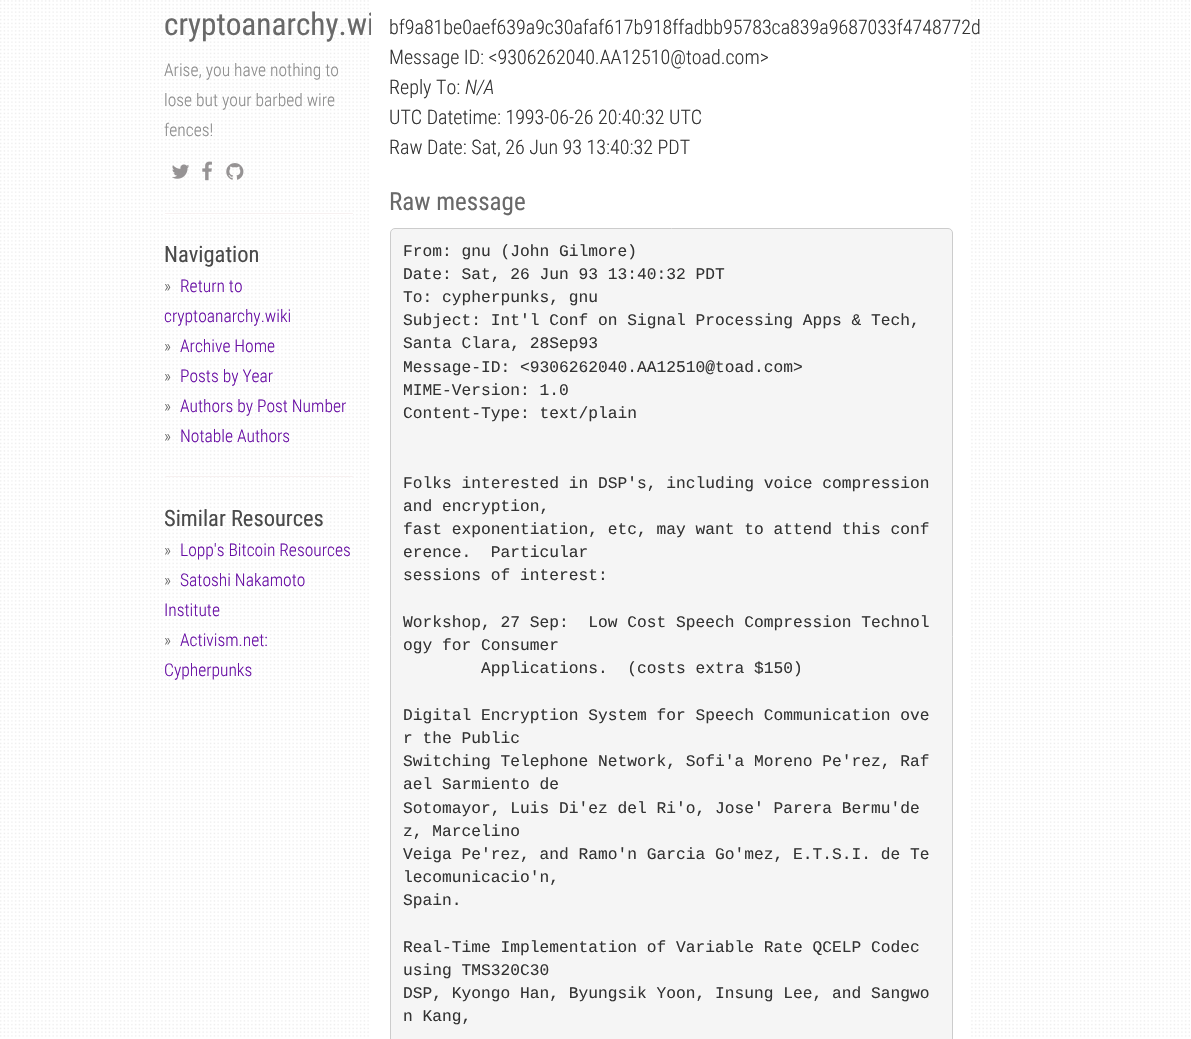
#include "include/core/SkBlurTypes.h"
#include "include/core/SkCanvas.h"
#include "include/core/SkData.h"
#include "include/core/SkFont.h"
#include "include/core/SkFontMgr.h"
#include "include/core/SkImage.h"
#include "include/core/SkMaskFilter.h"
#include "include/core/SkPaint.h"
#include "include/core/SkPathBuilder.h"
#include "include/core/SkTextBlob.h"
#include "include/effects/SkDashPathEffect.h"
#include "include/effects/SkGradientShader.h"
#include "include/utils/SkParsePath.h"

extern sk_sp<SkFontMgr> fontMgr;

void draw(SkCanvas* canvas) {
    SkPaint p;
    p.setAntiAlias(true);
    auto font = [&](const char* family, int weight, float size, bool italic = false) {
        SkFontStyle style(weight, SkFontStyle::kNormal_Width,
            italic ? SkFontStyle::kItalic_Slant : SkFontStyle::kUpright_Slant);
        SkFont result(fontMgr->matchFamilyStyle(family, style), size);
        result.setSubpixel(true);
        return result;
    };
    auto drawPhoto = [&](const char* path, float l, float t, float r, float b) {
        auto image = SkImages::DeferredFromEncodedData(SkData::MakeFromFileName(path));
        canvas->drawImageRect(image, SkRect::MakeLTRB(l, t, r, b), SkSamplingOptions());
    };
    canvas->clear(0xFFFFFFFF);
    drawPhoto("media/1.png", 0, 0, 1190, 1037);
    auto font1 = font("Roboto Condensed", 400, 31.25f);
    p.setColor(0xFF696969);
    canvas->drawString("cryptoanarchy.wi", 164, 35, font1, p);
    auto font2 = font("Roboto Condensed", 300, 17.5f);
    p.setColor(0xFF8C8C8C);
    {
        const struct { const char* s; float x, y; } items[] = {
            {"Arise, you have nothing to", 164, 76},
            {"lose but your barbed wire", 164, 106},
            {"fences!", 164, 136},
        };
        for (auto [s, x, y] : items) {
            canvas->drawString(s, x, y, font2, p);
        }
    }
    drawPhoto("media/2.png", 172, 164, 190, 179);
    drawPhoto("media/3.png", 202, 161, 212, 181);
    drawPhoto("media/4.png", 226, 163, 244, 180);
    p.setColor(0xFFF7F1F1);
    canvas->drawRect(SkRect::MakeLTRB(165, 213, 353, 214), p);
    p.setColor(0xFFFFFFFF);
    canvas->drawRect(SkRect::MakeLTRB(165, 214, 353, 215), p);
    auto font3 = font("Roboto Condensed", 400, 22.5f);
    p.setColor(0xFF4A4A4A);
    canvas->drawString("Navigation", 164, 262, font3, p);
    p.setColor(0xFF696969);
    canvas->drawString("»", 164, 292, font2, p);
    p.setColor(0xFF680EA4);
    canvas->drawString("Return to", 180, 292, font2, p);
    canvas->drawString("cryptoanarchy.wiki", 164, 322, font2, p);
    p.setColor(0xFF696969);
    canvas->drawString("»", 164, 352, font2, p);
    p.setColor(0xFF680EA4);
    canvas->drawString("Archive Home", 180, 352, font2, p);
    p.setColor(0xFF696969);
    canvas->drawString("»", 164, 382, font2, p);
    p.setColor(0xFF680EA4);
    canvas->drawString("Posts by Year", 180, 382, font2, p);
    p.setColor(0xFF696969);
    canvas->drawString("»", 164, 412, font2, p);
    p.setColor(0xFF680EA4);
    canvas->drawString("Authors by Post Number", 180, 412, font2, p);
    p.setColor(0xFF696969);
    canvas->drawString("»", 164, 442, font2, p);
    p.setColor(0xFF680EA4);
    canvas->drawString("Notable Authors", 180, 442, font2, p);
    p.setColor(0xFFF7F1F1);
    canvas->drawRect(SkRect::MakeLTRB(165, 476, 353, 477), p);
    p.setColor(0xFF4A4A4A);
    canvas->drawString("Similar Resources", 164, 526, font3, p);
    p.setColor(0xFF696969);
    canvas->drawString("»", 164, 556, font2, p);
    p.setColor(0xFF680EA4);
    canvas->drawString("Lopp's Bitcoin Resources", 180, 556, font2, p);
    p.setColor(0xFF696969);
    canvas->drawString("»", 164, 586, font2, p);
    p.setColor(0xFF680EA4);
    canvas->drawString("Satoshi Nakamoto", 180, 586, font2, p);
    canvas->drawString("Institute", 164, 616, font2, p);
    p.setColor(0xFF696969);
    canvas->drawString("»", 164, 646, font2, p);
    p.setColor(0xFF680EA4);
    canvas->drawString("Activism.net:", 180, 646, font2, p);
    canvas->drawString("Cypherpunks", 164, 676, font2, p);
    p.setColor(0xFFFFFFFF);
    canvas->drawRect(SkRect::MakeLTRB(371, 0, 969, 1037), p);
    auto font4 = font("Roboto Condensed", 300, 20);
    p.setColor(0xFF333333);
    {
        const struct { const char* s; float x, y; } items[] = {
            {"bf9a81be0aef639a9c30afaf617b918ffadbb95783ca839a9687033f4748772d", 389, 34},
            {"Message ID: <9306262040.AA12510@toad.com>", 389, 64},
            {"Reply To:", 389, 94},
        };
        for (auto [s, x, y] : items) {
            canvas->drawString(s, x, y, font4, p);
        }
    }
    auto font5 = font("Roboto Condensed", 300, 20, true);
    canvas->drawString("N/A", 465, 94, font5, p);
    canvas->drawString("UTC Datetime: 1993-06-26 20:40:32 UTC", 389, 124, font4, p);
    canvas->drawString("Raw Date: Sat, 26 Jun 93 13:40:32 PDT", 389, 154, font4, p);
    auto font6 = font("Roboto Condensed", 400, 25);
    p.setColor(0xFF696969);
    canvas->drawString("Raw message", 389, 210, font6, p);
    p.setColor(0xFFF5F5F5);
    canvas->drawRoundRect(SkRect::MakeLTRB(390.5f, 228.5f, 952.5f, 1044.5f), 4.5f, 4.5f, p);
    p.setStyle(SkPaint::kStroke_Style);
    p.setStrokeWidth(1);
    p.setColor(0xFFCCCCCC);
    canvas->drawRoundRect(SkRect::MakeLTRB(390.5f, 228.5f, 952.5f, 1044.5f), 4.5f, 4.5f, p);
    auto font7 = font("Liberation Mono", 400, 16.25f);
    p.setStyle(SkPaint::kFill_Style);
    p.setColor(0xFF333333);
    {
        const struct { const char* s; float x, y; } items[] = {
            {"From: gnu (John Gilmore)", 403, 256},
            {"Date: Sat, 26 Jun 93 13:40:32 PDT", 403, 279},
            {"To: cypherpunks, gnu", 403, 302},
            {"Subject: Int'l Conf on Signal Processing Apps & Tech,", 403, 325},
            {"Santa Clara, 28Sep93", 403, 348},
            {"Message-ID: <9306262040.AA12510@toad.com>", 403, 372},
            {"MIME-Version: 1.0", 403, 395},
            {"Content-Type: text/plain", 403, 418},
            {"Folks interested in DSP's, including voice compression", 403, 488},
            {"and encryption,", 403, 511},
            {"fast exponentiation, etc, may want to attend this conf", 403, 534},
            {"erence.  Particular", 403, 557},
            {"sessions of interest:", 403, 580},
            {"Workshop, 27 Sep:  Low Cost Speech Compression Technol", 403, 627},
            {"ogy for Consumer", 403, 650},
            {"Applications.  (costs extra $150)", 481, 673},
            {"Digital Encryption System for Speech Communication ove", 403, 720},
            {"r the Public", 403, 743},
            {"Switching Telephone Network, Sofi'a Moreno Pe'rez, Raf", 403, 766},
            {"ael Sarmiento de", 403, 789},
            {"Sotomayor, Luis Di'ez del Ri'o, Jose' Parera Bermu'de", 403, 813},
            {"z, Marcelino", 403, 836},
            {"Veiga Pe'rez, and Ramo'n Garcia Go'mez, E.T.S.I. de Te", 403, 859},
            {"lecomunicacio'n,", 403, 882},
            {"Spain.", 403, 905},
            {"Real-Time Implementation of Variable Rate QCELP Codec", 403, 952},
            {"using TMS320C30", 403, 975},
            {"DSP, Kyongo Han, Byungsik Yoon, Insung Lee, and Sangwo", 403, 998},
            {"n Kang,", 403, 1021},
        };
        for (auto [s, x, y] : items) {
            canvas->drawString(s, x, y, font7, p);
        }
    }
}
